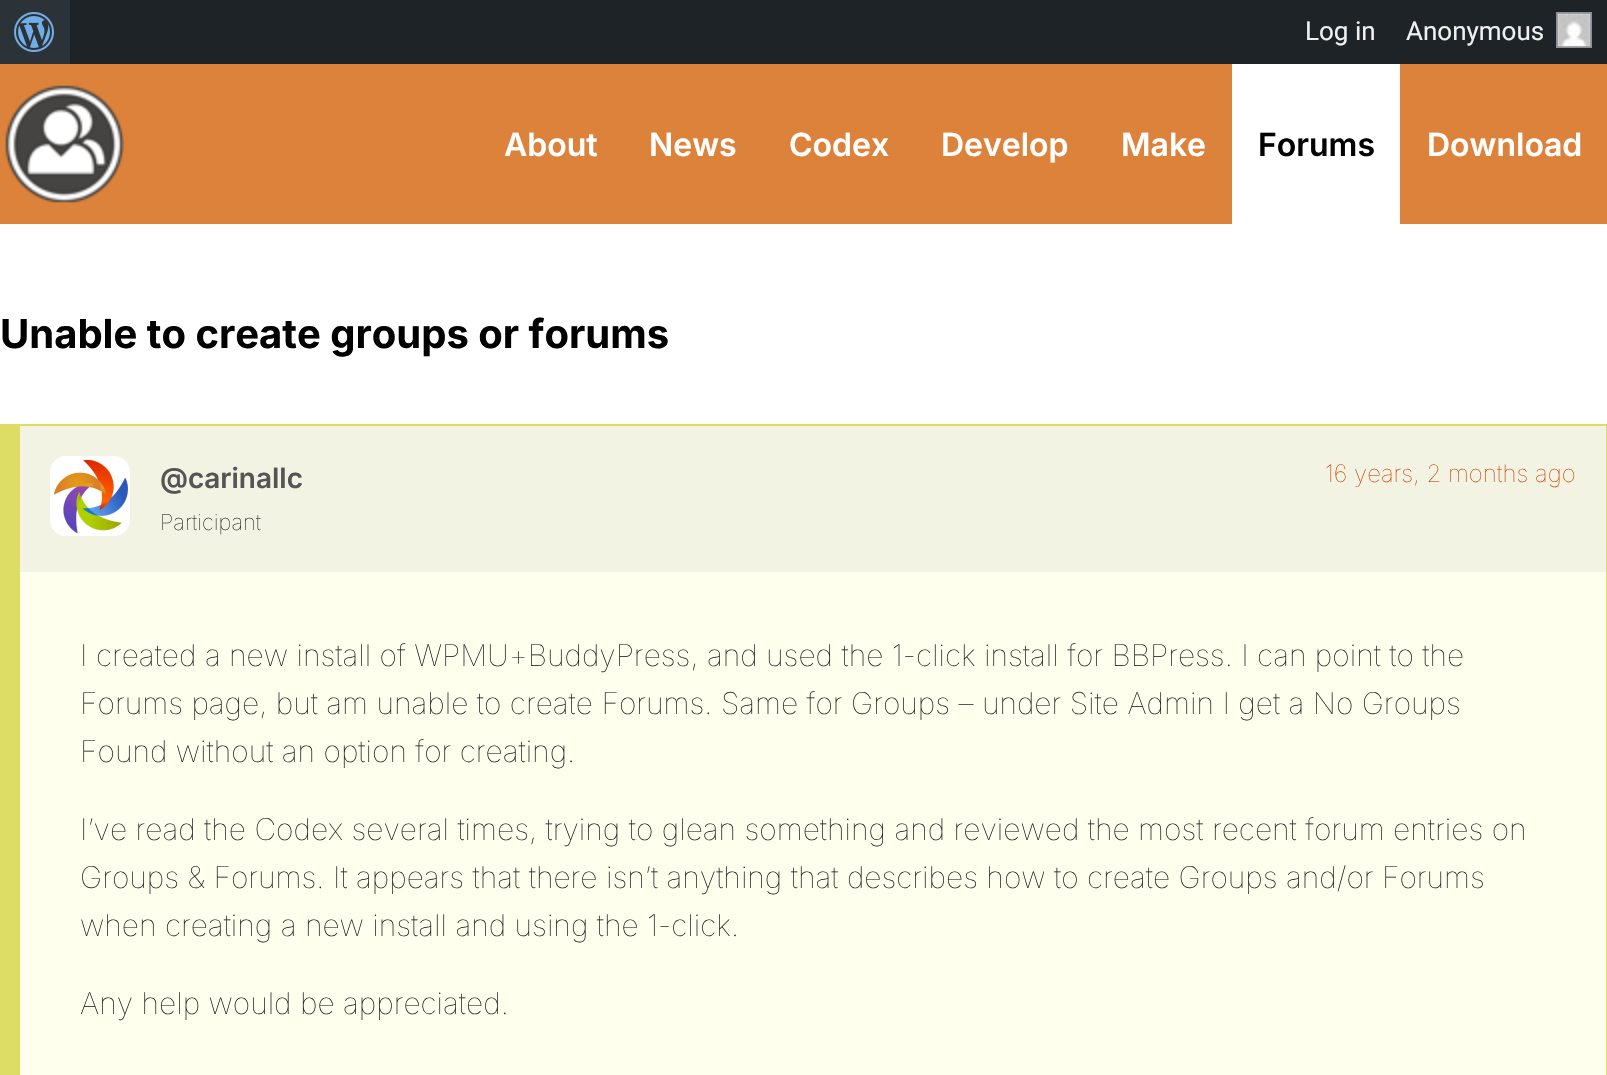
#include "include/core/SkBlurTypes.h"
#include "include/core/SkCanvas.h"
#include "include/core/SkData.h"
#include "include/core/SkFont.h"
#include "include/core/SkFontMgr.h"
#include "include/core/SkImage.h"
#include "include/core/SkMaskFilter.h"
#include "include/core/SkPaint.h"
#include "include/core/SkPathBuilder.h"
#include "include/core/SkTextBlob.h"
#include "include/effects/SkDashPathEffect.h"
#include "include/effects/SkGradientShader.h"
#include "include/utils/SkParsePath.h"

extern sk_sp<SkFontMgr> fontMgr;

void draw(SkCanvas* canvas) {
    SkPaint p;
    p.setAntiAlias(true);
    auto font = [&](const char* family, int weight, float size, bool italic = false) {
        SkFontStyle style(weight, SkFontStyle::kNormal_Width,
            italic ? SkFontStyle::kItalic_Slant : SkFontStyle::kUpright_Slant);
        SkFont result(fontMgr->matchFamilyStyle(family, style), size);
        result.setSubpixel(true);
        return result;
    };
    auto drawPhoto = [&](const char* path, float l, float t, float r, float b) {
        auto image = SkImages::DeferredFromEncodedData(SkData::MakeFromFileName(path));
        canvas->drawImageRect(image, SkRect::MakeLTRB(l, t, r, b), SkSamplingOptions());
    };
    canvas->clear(0xFFFFFFFF);
    p.setColor(0xFF1D2327);
    canvas->drawRect(SkRect::MakeLTRB(70, 0, 1607, 64), p);
    p.setColor(0xFF2C3338);
    canvas->drawRect(SkRect::MakeLTRB(0, 0, 70, 64), p);
    drawPhoto("media/1.png", 14, 12, 54, 52);
    auto font1 = font("Roboto", 400, 26);
    p.setColor(0xFFF0F0F1);
    canvas->drawString("Log in", 1305, 40, font1, p);
    canvas->drawRect(SkRect::MakeLTRB(1557, 13, 1591, 47), p);
    p.setStyle(SkPaint::kStroke_Style);
    p.setStrokeWidth(2);
    p.setColor(0xFF8C8F94);
    canvas->drawRect(SkRect::MakeLTRB(1557, 13, 1591, 47), p);
    p.setStyle(SkPaint::kFill_Style);
    p.setColor(0xFFF0F0F1);
    canvas->drawString("Anonymous", 1406, 40, font1, p);
    drawPhoto("media/2.png", 1557, 13, 1591, 47);
    p.setColor(0xFFDD823B);
    canvas->drawRect(SkRect::MakeLTRB(0, 64, 1607, 224), p);
    drawPhoto("media/3.png", 5, 85, 125, 203);
    auto font2 = font("Inter", 600, 32);
    p.setColor(0xFFFFFFFF);
    {
        const struct { const char* s; float x, y; } items[] = {
            {"About", 504, 156},
            {"News", 649, 156},
            {"Codex", 789, 156},
            {"Develop", 941, 156},
            {"Make", 1121, 156},
        };
        for (auto [s, x, y] : items) {
            canvas->drawString(s, x, y, font2, p);
        }
    }
    canvas->drawRect(SkRect::MakeLTRB(1232, 64, 1400, 224), p);
    p.setColor(0xFF000000);
    canvas->drawString("Forums", 1258, 156, font2, p);
    p.setColor(0xFFFFFFFF);
    canvas->drawString("Download", 1427, 156, font2, p);
    auto font3 = font("Inter", 700, 40);
    p.setColor(0xFF000000);
    canvas->drawString("Unable to create groups or forums", 0, 348, font3, p);
    {
        const struct { float l, t, r, b; SkColor color; } items[] = {
            {20, 424, 1607, 426, 0xFFDDDD66},
            {1606, 424, 1607, 1075, 0xFFDDDD66},
            {0, 424, 20, 1075, 0xFFDDDD66},
            {20, 572, 1606, 1075, 0xFFFFFFEE},
            {20, 426, 1606, 572, 0xFFF3F3E3},
        };
        for (auto [l, t, r, b, color] : items) {
            p.setColor(color);
            canvas->drawRect(SkRect::MakeLTRB(l, t, r, b), p);
        }
    }
    drawPhoto("media/4.png", 50, 456, 130, 536);
    auto font4 = font("Inter", 600, 28);
    p.setColor(0xFF555555);
    canvas->drawString("@carinallc", 160, 488, font4, p);
    auto font5 = font("Inter", 100, 22);
    p.setColor(0xFF222222);
    canvas->drawString("Participant", 160, 530, font5, p);
    auto font6 = font("Inter", 100, 24);
    p.setColor(0xFFC74200);
    canvas->drawString("16 years, 2 months ago", 1325, 482, font6, p);
    auto font7 = font("Inter", 100, 30);
    p.setColor(0xFF222222);
    {
        const struct { const char* s; float x, y; } items[] = {
            {"I created a new install of WPMU+BuddyPress, and used the 1-click install for BBPress. I can point to the", 80, 666},
            {"Forums page, but am unable to create Forums. Same for Groups – under Site Admin I get a No Groups", 80, 714},
            {"Found without an option for creating.", 80, 762},
            {"I’ve read the Codex several times, trying to glean something and reviewed the most recent forum entries on", 80, 840},
            {"Groups & Forums. It appears that there isn’t anything that describes how to create Groups and/or Forums", 80, 888},
            {"when creating a new install and using the 1-click.", 80, 936},
            {"Any help would be appreciated.", 80, 1014},
        };
        for (auto [s, x, y] : items) {
            canvas->drawString(s, x, y, font7, p);
        }
    }
}
